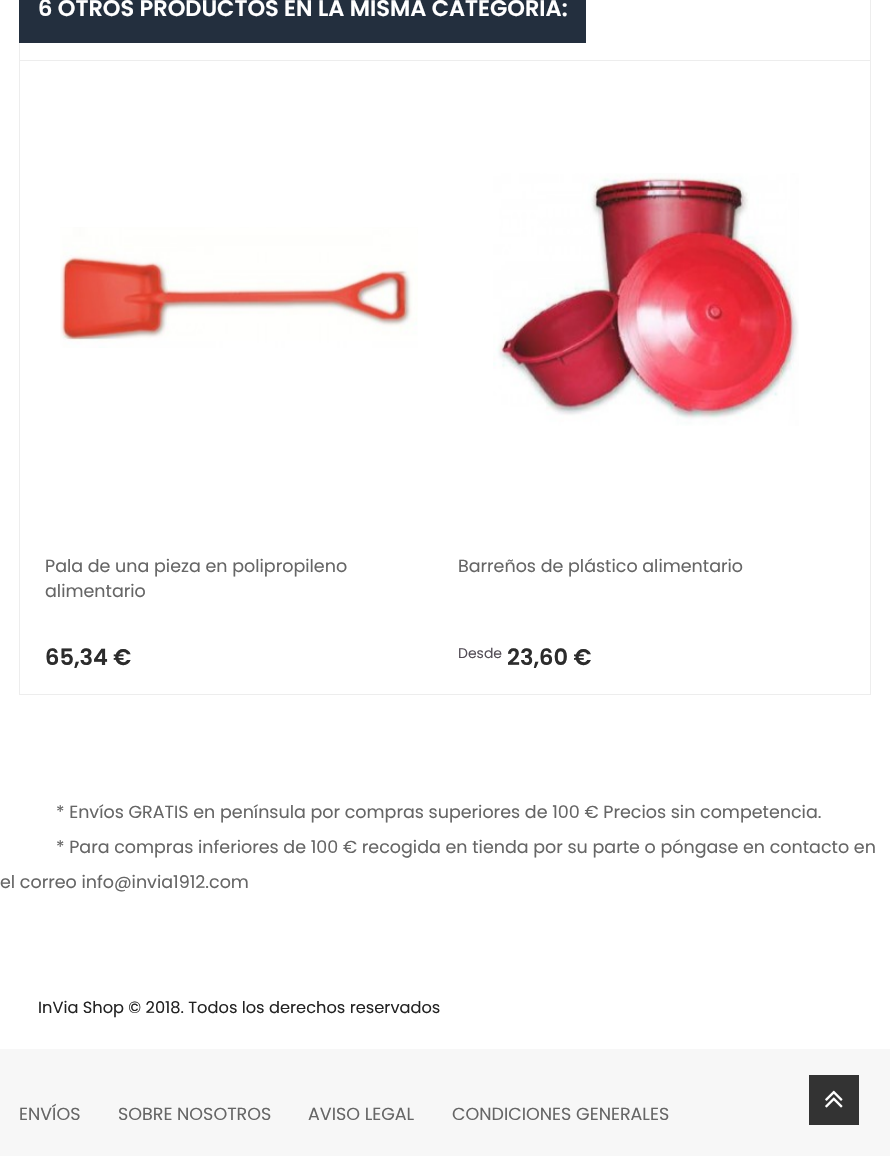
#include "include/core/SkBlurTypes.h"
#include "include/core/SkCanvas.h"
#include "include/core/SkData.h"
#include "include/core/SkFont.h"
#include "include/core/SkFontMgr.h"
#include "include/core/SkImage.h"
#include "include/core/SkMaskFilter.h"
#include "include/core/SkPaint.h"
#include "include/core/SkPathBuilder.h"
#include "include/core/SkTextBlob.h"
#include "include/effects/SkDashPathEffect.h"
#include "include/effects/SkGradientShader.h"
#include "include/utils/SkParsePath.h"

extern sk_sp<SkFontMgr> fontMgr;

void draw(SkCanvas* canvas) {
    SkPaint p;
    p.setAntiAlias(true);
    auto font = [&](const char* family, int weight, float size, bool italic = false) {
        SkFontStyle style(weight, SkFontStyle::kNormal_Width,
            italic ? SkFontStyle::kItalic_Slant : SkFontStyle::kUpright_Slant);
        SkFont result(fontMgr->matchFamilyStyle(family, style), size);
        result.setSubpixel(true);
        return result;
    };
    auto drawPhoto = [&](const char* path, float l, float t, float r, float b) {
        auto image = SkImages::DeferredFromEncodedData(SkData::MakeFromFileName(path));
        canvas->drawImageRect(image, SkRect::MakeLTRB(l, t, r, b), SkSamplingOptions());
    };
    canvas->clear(0xFFFFFFFF);
    p.setColor(0xFFEDEDED);
    canvas->drawPath(SkPathBuilder().moveTo(871, -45).lineTo(871, 61).lineTo(870, 60).lineTo(870, -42).close().detach(), p);
    canvas->drawRect(SkRect::MakeLTRB(19, 60, 871, 61), p);
    canvas->drawPath(SkPathBuilder().moveTo(19, 61).lineTo(19, -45).lineTo(20, -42).lineTo(20, 60).close().detach(), p);
    p.setColor(0xFF232F3E);
    canvas->drawRect(SkRect::MakeLTRB(19, 0, 586, 43), p);
    auto font1 = font("Poppins", 600, 22.5f);
    p.setColor(0xFFFFFFFF);
    canvas->drawString("6 OTROS PRODUCTOS EN LA MISMA CATEGORÍA:", 38, 16, font1, p);
    {
        const struct { float l, t, r, b; SkColor color; } items[] = {
            {870, 61, 871, 695, 0xFFEDEDED},
            {19, 694, 871, 695, 0xFFEDEDED},
            {19, 61, 20, 695, 0xFFEDEDED},
        };
        for (auto [l, t, r, b, color] : items) {
            p.setColor(color);
            canvas->drawRect(SkRect::MakeLTRB(l, t, r, b), p);
        }
    }
    drawPhoto("media/1.png", 60, 227, 418, 348);
    auto font2 = font("Poppins", 400, 17.5f);
    p.setColor(0xFF666666);
    canvas->drawString("Pala de una pieza en polipropileno", 45, 572, font2, p);
    canvas->drawString("alimentario", 45, 597, font2, p);
    p.setColor(0xFF2C2C2C);
    canvas->drawString("65,34 €", 45, 665, font1, p);
    drawPhoto("media/2.png", 493, 173, 799, 426);
    p.setColor(0xFF666666);
    canvas->drawString("Barreños de plástico alimentario", 458, 572, font2, p);
    auto font3 = font("Poppins", 400, 14);
    p.setColor(0xFF554F58);
    canvas->drawString("Desde", 458, 658, font3, p);
    p.setColor(0xFF2C2C2C);
    canvas->drawString("23,60 €", 507, 665, font1, p);
    p.setColor(0xFF666666);
    {
        const struct { const char* s; float x, y; } items[] = {
            {"* Envíos GRATIS en península por compras superiores de 100 € Precios sin competencia.", 56, 818},
            {"* Para compras inferiores de 100 € recogida en tienda por su parte o póngase en contacto en", 56, 853},
            {"el correo info@invia1912.com", 0, 888},
        };
        for (auto [s, x, y] : items) {
            canvas->drawString(s, x, y, font2, p);
        }
    }
    auto font4 = font("Poppins", 400, 16.25f);
    p.setColor(0xFF232323);
    canvas->drawString("InVia Shop © 2018. Todos los derechos reservados", 38, 1013, font4, p);
    p.setColor(0xFFF7F7F7);
    canvas->drawRect(SkRect::MakeLTRB(0, 1049, 890, 1156), p);
    p.setColor(0xFF666666);
    {
        const struct { const char* s; float x, y; } items[] = {
            {"ENVÍOS", 19, 1120},
            {"SOBRE NOSOTROS", 118, 1120},
            {"AVISO LEGAL", 308, 1120},
            {"CONDICIONES GENERALES", 452, 1120},
        };
        for (auto [s, x, y] : items) {
            canvas->drawString(s, x, y, font2, p);
        }
    }
    p.setColor(0xFF333333);
    canvas->drawRect(SkRect::MakeLTRB(809, 1075, 859, 1125), p);
    drawPhoto("media/3.png", 825, 1090, 843, 1108);
}
